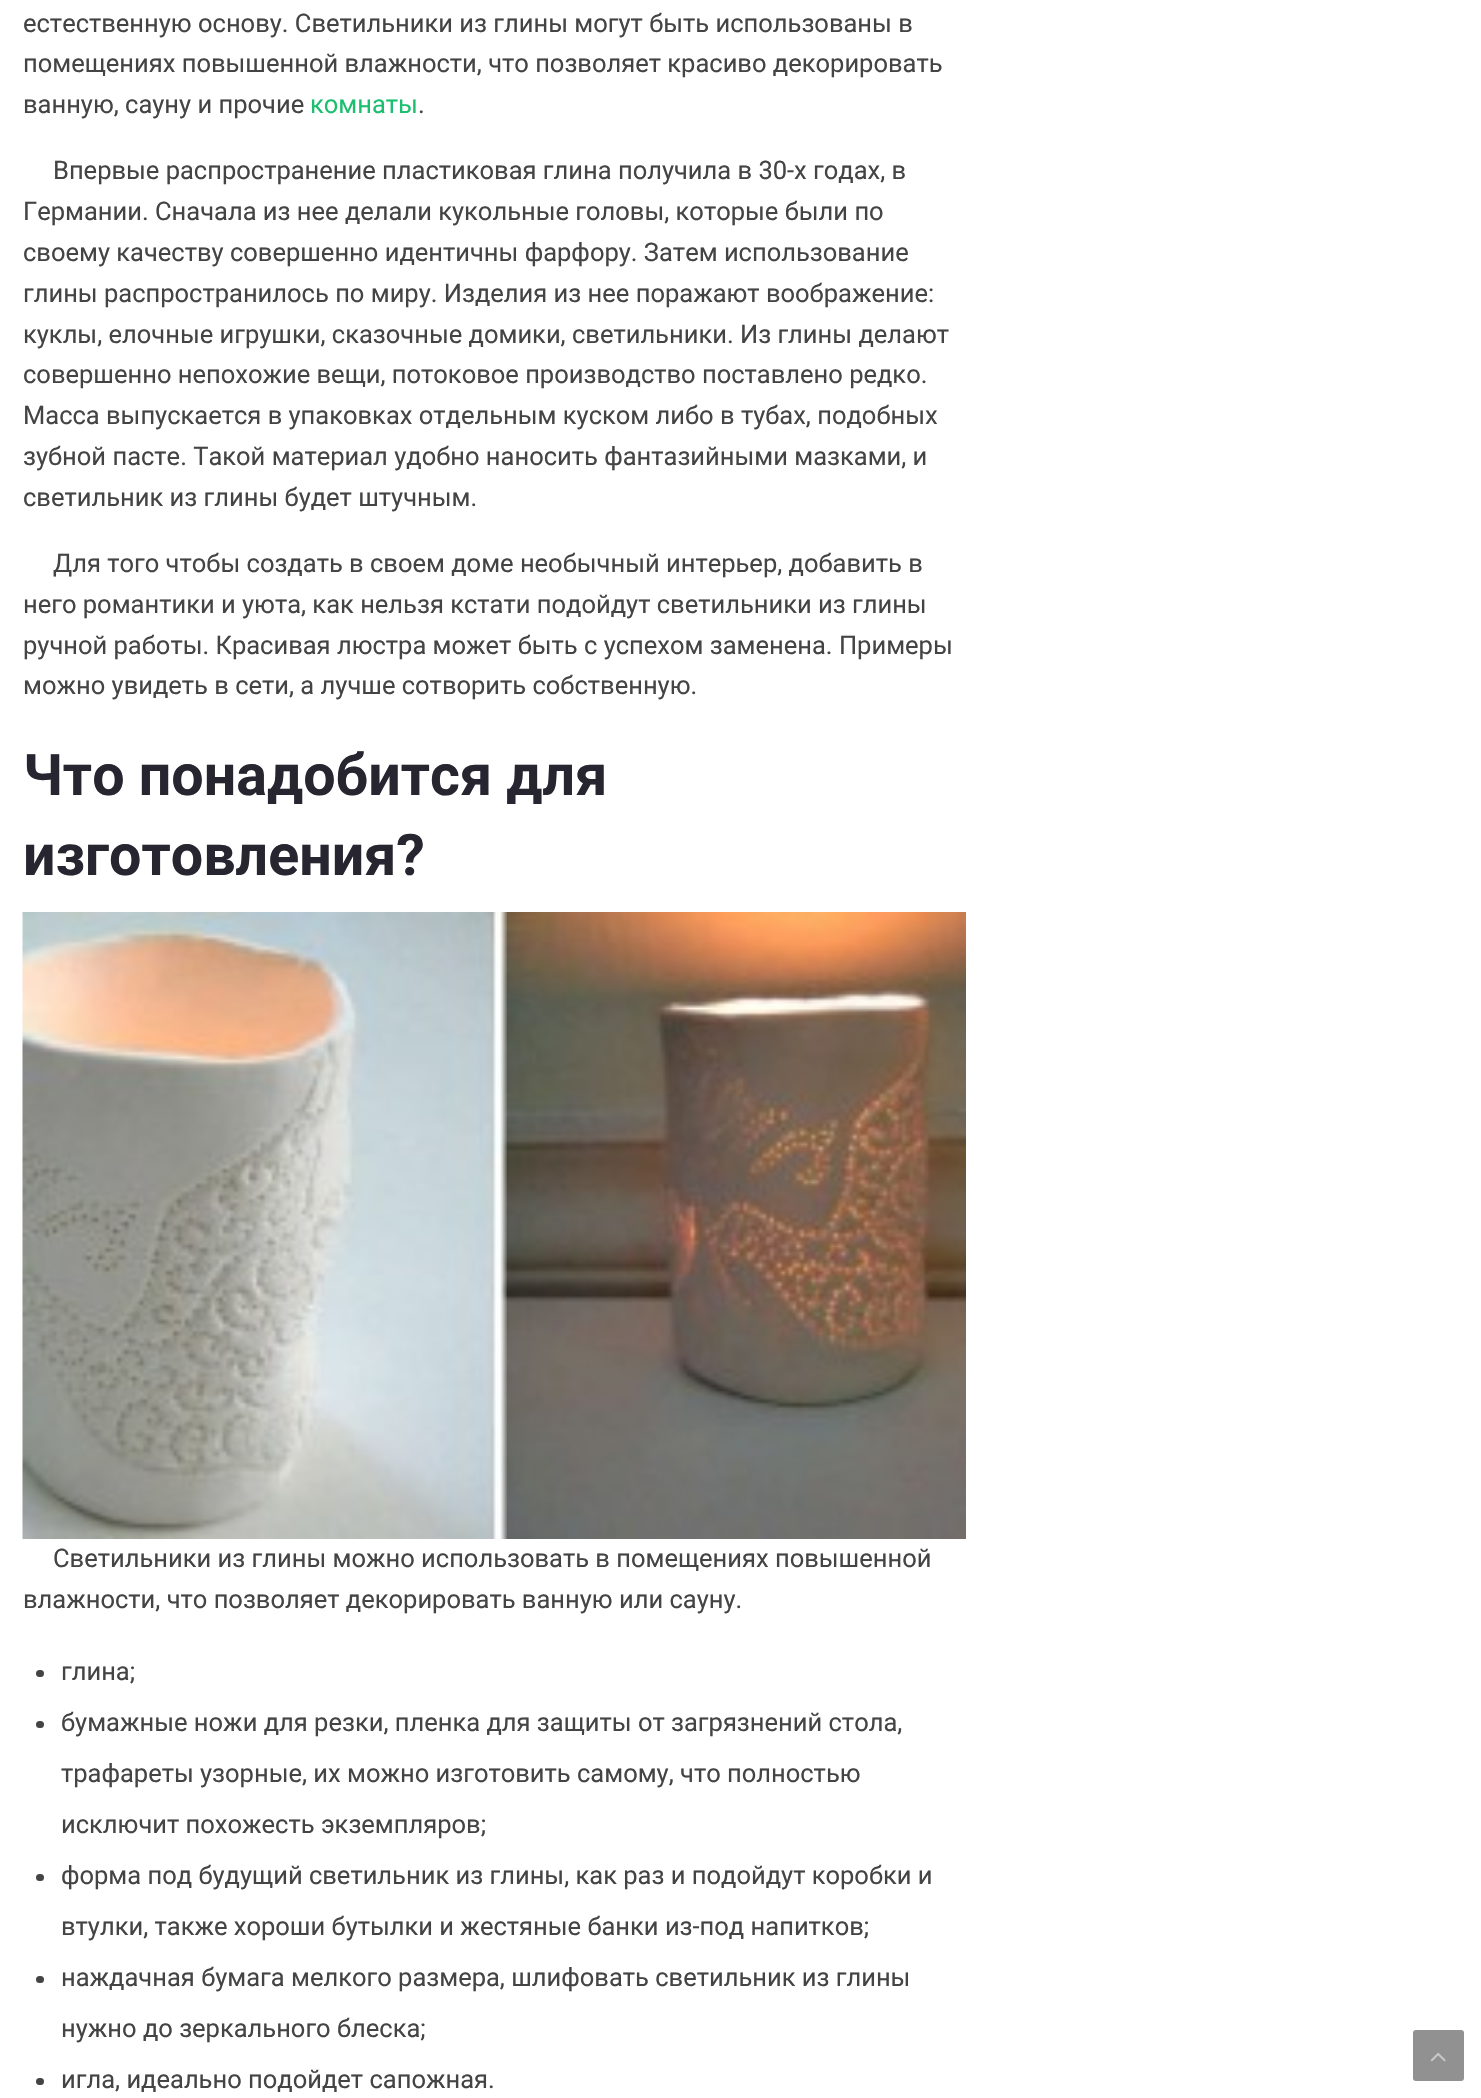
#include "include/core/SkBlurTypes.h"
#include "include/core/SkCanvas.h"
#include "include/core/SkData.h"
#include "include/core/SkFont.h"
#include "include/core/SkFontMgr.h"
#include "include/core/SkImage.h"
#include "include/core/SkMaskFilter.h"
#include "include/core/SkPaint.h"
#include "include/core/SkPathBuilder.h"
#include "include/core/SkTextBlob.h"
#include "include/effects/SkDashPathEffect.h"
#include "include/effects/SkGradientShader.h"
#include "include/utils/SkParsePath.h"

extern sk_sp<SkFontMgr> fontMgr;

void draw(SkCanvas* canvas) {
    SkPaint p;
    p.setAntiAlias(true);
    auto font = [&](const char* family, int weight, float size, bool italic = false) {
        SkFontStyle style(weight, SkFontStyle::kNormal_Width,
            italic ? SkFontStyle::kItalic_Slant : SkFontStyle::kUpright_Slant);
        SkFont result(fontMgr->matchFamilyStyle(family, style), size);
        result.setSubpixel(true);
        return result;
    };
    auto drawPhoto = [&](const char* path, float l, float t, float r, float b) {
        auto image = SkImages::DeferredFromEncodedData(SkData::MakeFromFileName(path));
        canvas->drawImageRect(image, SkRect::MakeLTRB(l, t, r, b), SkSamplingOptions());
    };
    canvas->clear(0xFFFFFFFF);
    auto font1 = font("Roboto", 400, 25.5f);
    p.setColor(0xFF444444);
    {
        const struct { const char* s; float x, y; } items[] = {
            {"естественную основу. Светильники из глины могут быть использованы в", 23, 32},
            {"помещениях повышенной влажности, что позволяет красиво декорировать", 23, 72},
            {"ванную, сауну и прочие", 23, 113},
        };
        for (auto [s, x, y] : items) {
            canvas->drawString(s, x, y, font1, p);
        }
    }
    p.setColor(0xFF1DBE6F);
    canvas->drawString("комнаты", 310, 113, font1, p);
    p.setColor(0xFF444444);
    {
        const struct { const char* s; float x, y; } items[] = {
            {".", 418, 113},
            {"Впервые распространение пластиковая глина получила в 30-х годах, в", 53, 179},
            {"Германии. Сначала из нее делали кукольные головы, которые были по", 23, 220},
            {"своему качеству совершенно идентичны фарфору. Затем использование", 23, 261},
            {"глины распространилось по миру. Изделия из нее поражают воображение:", 23, 302},
            {"куклы, елочные игрушки, сказочные домики, светильники. Из глины делают", 23, 343},
            {"совершенно непохожие вещи, потоковое производство поставлено редко.", 23, 383},
            {"Масса выпускается в упаковках отдельным куском либо в тубах, подобных", 23, 424},
            {"зубной пасте. Такой материал удобно наносить фантазийными мазками, и", 23, 465},
            {"светильник из глины будет штучным.", 23, 506},
            {"Для того чтобы создать в своем доме необычный интерьер, добавить в", 53, 572},
            {"него романтики и уюта, как нельзя кстати подойдут светильники из глины", 23, 613},
            {"ручной работы. Красивая люстра может быть с успехом заменена. Примеры", 23, 654},
            {"можно увидеть в сети, а лучше сотворить собственную.", 23, 694},
        };
        for (auto [s, x, y] : items) {
            canvas->drawString(s, x, y, font1, p);
        }
    }
    auto font2 = font("Roboto", 700, 57.4f);
    p.setColor(0xFF272630);
    canvas->drawString("Что понадобится для", 23, 795, font2, p);
    canvas->drawString("изготовления?", 23, 875, font2, p);
    drawPhoto("media/1.png", 22, 912, 966, 1539);
    p.setColor(0xFF444444);
    canvas->drawString("Светильники из глины можно использовать в помещениях повышенной", 53, 1567, font1, p);
    canvas->drawString("влажности, что позволяет декорировать ванную или сауну.", 23, 1608, font1, p);
    canvas->drawRoundRect(SkRect::MakeLTRB(36, 1670, 44, 1677), 3.5f, 3.5f, p);
    canvas->drawString("глина;", 61, 1680, font1, p);
    canvas->drawRoundRect(SkRect::MakeLTRB(36, 1721, 44, 1728), 3.5f, 3.5f, p);
    {
        const struct { const char* s; float x, y; } items[] = {
            {"бумажные ножи для резки, пленка для защиты от загрязнений стола,", 61, 1731},
            {"трафареты узорные, их можно изготовить самому, что полностью", 61, 1782},
            {"исключит похожесть экземпляров;", 61, 1833},
        };
        for (auto [s, x, y] : items) {
            canvas->drawString(s, x, y, font1, p);
        }
    }
    canvas->drawRoundRect(SkRect::MakeLTRB(36, 1874, 44, 1881), 3.5f, 3.5f, p);
    canvas->drawString("форма под будущий светильник из глины, как раз и подойдут коробки и", 61, 1884, font1, p);
    canvas->drawString("втулки, также хороши бутылки и жестяные банки из-под напитков;", 61, 1935, font1, p);
    canvas->drawRoundRect(SkRect::MakeLTRB(36, 1976, 44, 1983), 3.5f, 3.5f, p);
    canvas->drawString("наждачная бумага мелкого размера, шлифовать светильник из глины", 61, 1986, font1, p);
    canvas->drawString("нужно до зеркального блеска;", 61, 2037, font1, p);
    canvas->drawRoundRect(SkRect::MakeLTRB(36, 2078, 44, 2085), 3.5f, 3.5f, p);
    canvas->drawString("игла, идеально подойдет сапожная.", 61, 2088, font1, p);
    p.setColor(0xFF919191);
    canvas->drawRoundRect(SkRect::MakeLTRB(1411.5f, 2028.5f, 1465.5f, 2082.5f), 4.5f, 4.5f, p);
    p.setStyle(SkPaint::kStroke_Style);
    p.setStrokeWidth(3);
    p.setColor(0xFFFFFFFF);
    canvas->drawRoundRect(SkRect::MakeLTRB(1411.5f, 2028.5f, 1465.5f, 2082.5f), 4.5f, 4.5f, p);
    drawPhoto("media/2.png", 1430, 2052, 1446, 2062);
}
